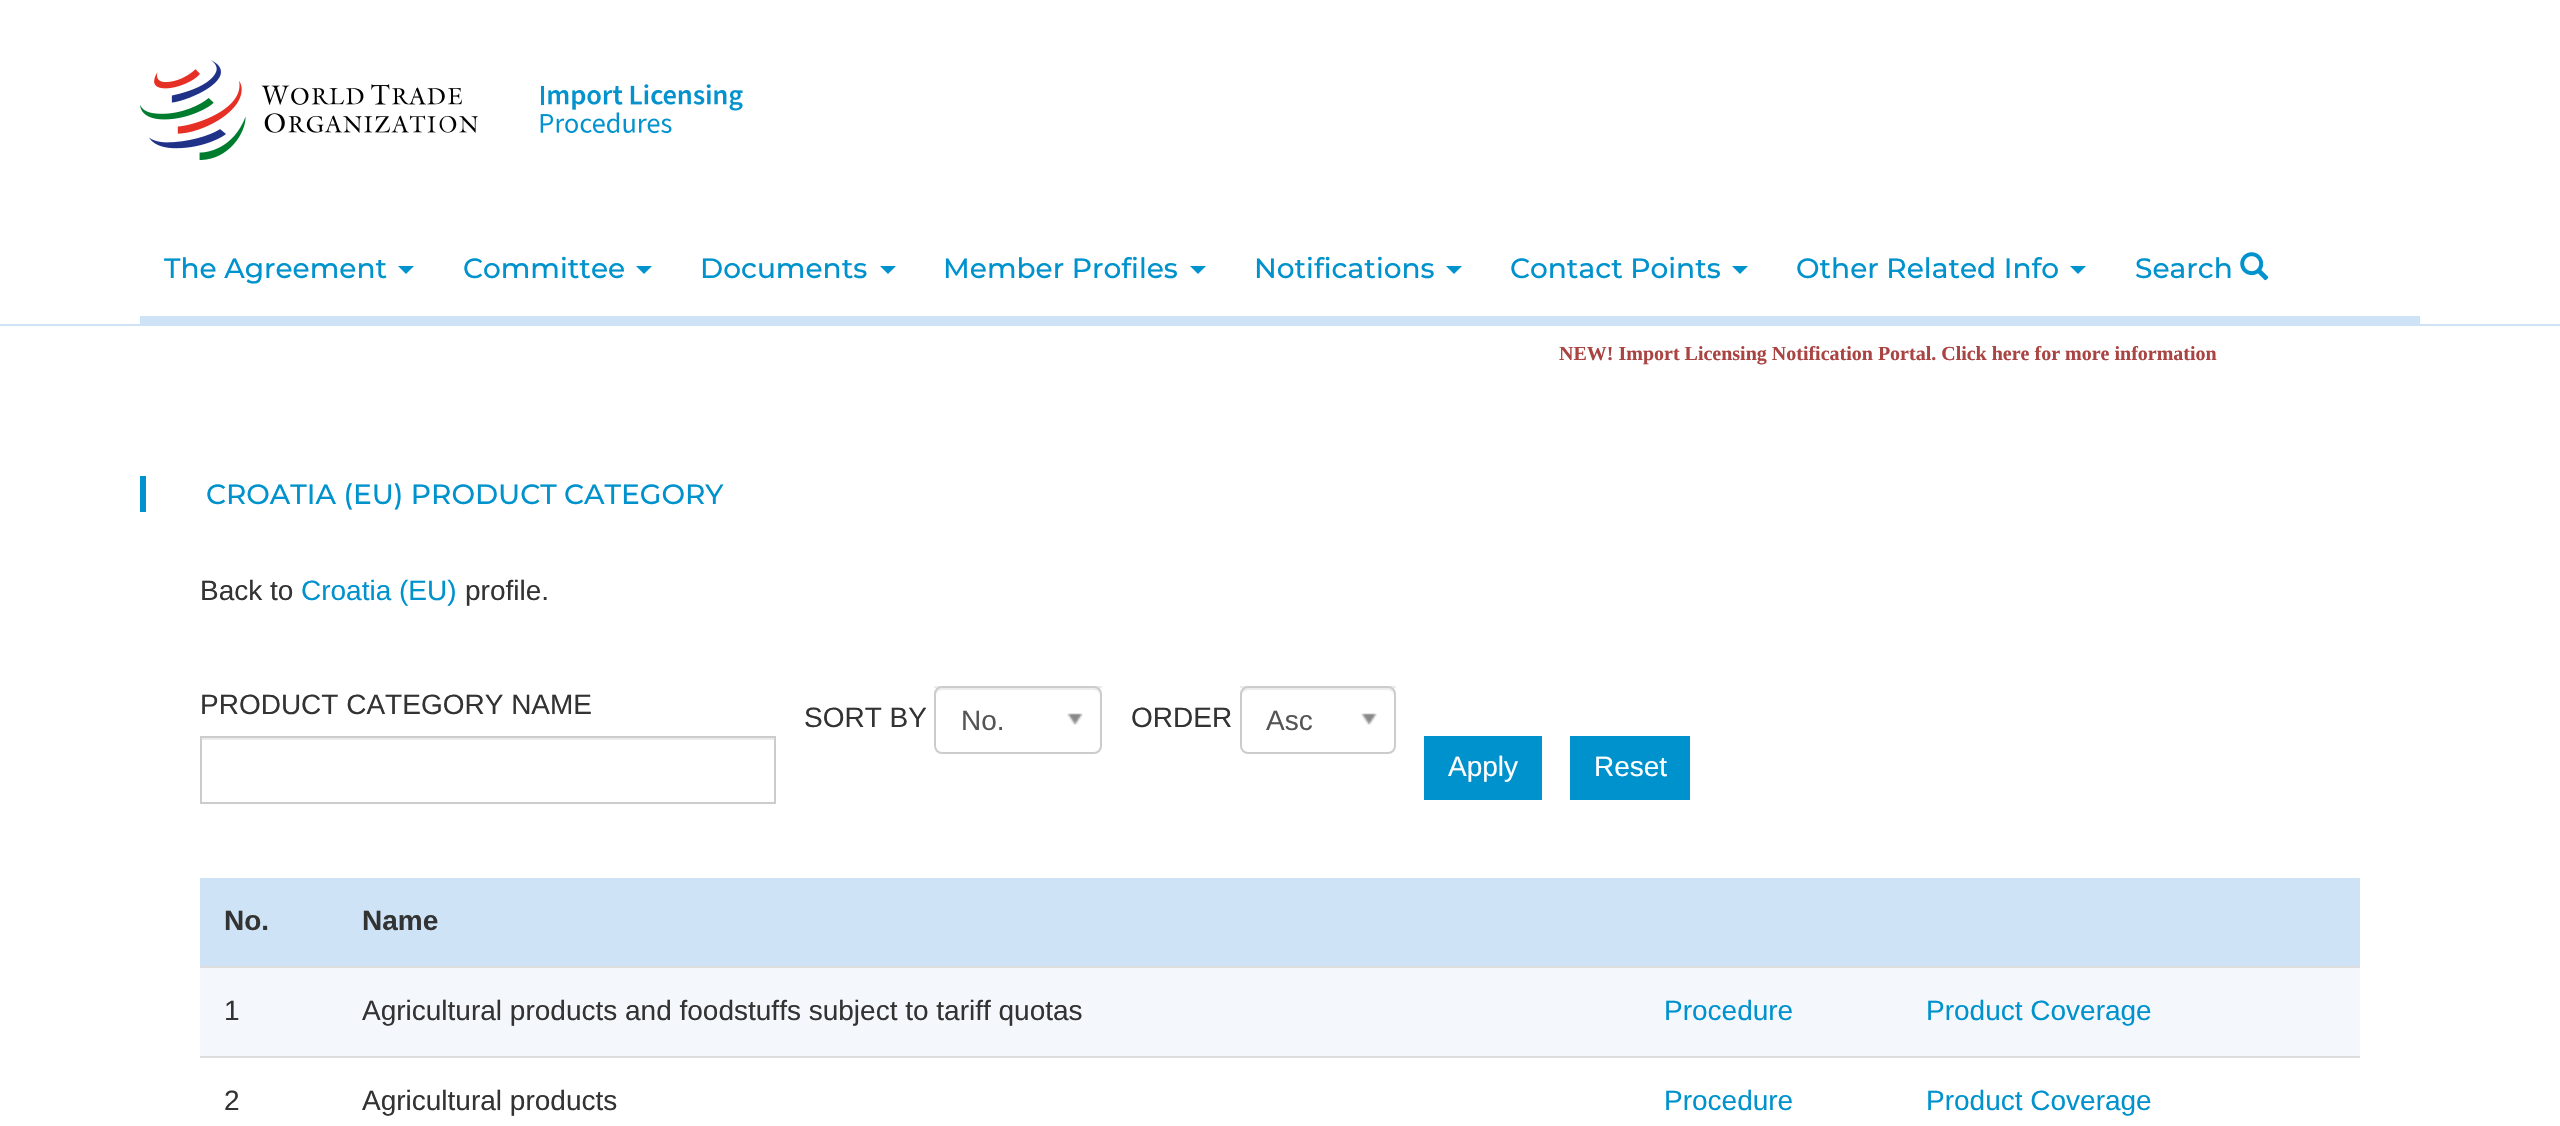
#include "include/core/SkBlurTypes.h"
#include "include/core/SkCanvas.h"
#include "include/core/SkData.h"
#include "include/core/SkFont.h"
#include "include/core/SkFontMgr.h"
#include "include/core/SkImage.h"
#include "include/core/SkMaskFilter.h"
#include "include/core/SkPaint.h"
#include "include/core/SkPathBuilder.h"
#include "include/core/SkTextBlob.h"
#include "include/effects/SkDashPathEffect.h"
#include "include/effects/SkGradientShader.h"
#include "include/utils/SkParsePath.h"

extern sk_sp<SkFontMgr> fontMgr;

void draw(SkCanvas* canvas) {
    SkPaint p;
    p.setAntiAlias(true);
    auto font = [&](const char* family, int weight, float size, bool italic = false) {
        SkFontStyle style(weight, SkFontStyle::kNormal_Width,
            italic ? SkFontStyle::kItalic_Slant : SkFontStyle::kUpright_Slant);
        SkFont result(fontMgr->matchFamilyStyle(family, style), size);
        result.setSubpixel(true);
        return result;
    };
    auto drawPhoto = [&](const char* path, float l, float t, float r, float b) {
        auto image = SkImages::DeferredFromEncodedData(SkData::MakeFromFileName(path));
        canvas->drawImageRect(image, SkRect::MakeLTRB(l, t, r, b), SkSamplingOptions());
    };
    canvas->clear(0xFFFFFFFF);
    drawPhoto("media/1.png", 140, 60, 478, 160);
    drawPhoto("media/2.png", 540, 84, 743, 134);
    p.setColor(0xFFCEE3F5);
    canvas->drawRect(SkRect::MakeLTRB(0, 324, 2560, 326), p);
    canvas->drawRect(SkRect::MakeLTRB(140, 316, 2420, 324), p);
    auto font1 = font("Montserrat", 500, 28);
    p.setColor(0xFF0092CD);
    canvas->drawString("The Agreement", 164, 278, font1, p);
    canvas->drawPath(SkPathBuilder().moveTo(398, 266).lineTo(414, 266).lineTo(406, 274).close().detach(), p);
    canvas->drawString("Committee", 463, 278, font1, p);
    canvas->drawPath(SkPathBuilder().moveTo(636, 266).lineTo(652, 266).lineTo(644, 274).close().detach(), p);
    canvas->drawString("Documents", 700, 278, font1, p);
    canvas->drawPath(SkPathBuilder().moveTo(880, 266).lineTo(896, 266).lineTo(888, 274).close().detach(), p);
    canvas->drawString("Member Profiles", 943, 278, font1, p);
    canvas->drawPath(SkPathBuilder().moveTo(1190, 266).lineTo(1206, 266).lineTo(1198, 274).close().detach(), p);
    canvas->drawString("Notifications", 1254, 278, font1, p);
    canvas->drawPath(SkPathBuilder().moveTo(1446, 266).lineTo(1462, 266).lineTo(1454, 274).close().detach(), p);
    canvas->drawString("Contact Points", 1510, 278, font1, p);
    canvas->drawPath(SkPathBuilder().moveTo(1732, 266).lineTo(1748, 266).lineTo(1740, 274).close().detach(), p);
    canvas->drawString("Other Related Info", 1796, 278, font1, p);
    canvas->drawPath(SkPathBuilder().moveTo(2070, 266).lineTo(2086, 266).lineTo(2078, 274).close().detach(), p);
    canvas->drawString("Search", 2135, 278, font1, p);
    drawPhoto("media/3.png", 2240, 252, 2269, 281);
    auto font2 = font("Liberation Serif", 700, 20);
    p.setColor(0xFFA94442);
    canvas->drawString("NEW! Import Licensing Notification Portal. Click here for more information", 1559, 360, font2, p);
    p.setColor(0xFF0092CD);
    canvas->drawRect(SkRect::MakeLTRB(140, 476, 146, 512), p);
    canvas->drawString("CROATIA (EU) PRODUCT CATEGORY", 206, 504, font1, p);
    auto font3 = font("Liberation Sans", 400, 28);
    p.setColor(0xFF333333);
    canvas->drawString("Back to", 200, 600, font3, p);
    p.setColor(0xFF0092CD);
    canvas->drawString("Croatia (EU)", 301, 600, font3, p);
    p.setColor(0xFF333333);
    canvas->drawString("profile.", 465, 600, font3, p);
    canvas->drawString("PRODUCT CATEGORY NAME", 200, 714, font3, p);
    p.setColor(0xFFECECEC);
    canvas->drawRect(SkRect::MakeLTRB(202, 738, 774, 740), p);
    p.setStyle(SkPaint::kStroke_Style);
    p.setStrokeWidth(2);
    p.setColor(0xFFCCCCCC);
    canvas->drawRect(SkRect::MakeLTRB(201, 737, 775, 803), p);
    p.setStyle(SkPaint::kFill_Style);
    p.setColor(0xFF333333);
    canvas->drawString("SORT BY", 804, 727, font3, p);
    p.setColor(0xFFECECEC);
    canvas->drawRect(SkRect::MakeLTRB(934, 686, 1102, 688), p);
    canvas->drawPath(SkPathBuilder().moveTo(942, 690).lineTo(1094, 690).cubicTo(1097, 690, 1100, 693, 1100, 696).lineTo(1100, 694).cubicTo(1100, 691, 1097, 688, 1094, 688).lineTo(942, 688).cubicTo(939, 688, 936, 691, 936, 694).lineTo(936, 696).cubicTo(936, 693, 939, 690, 942, 690).close().detach(), p);
    p.setStyle(SkPaint::kStroke_Style);
    p.setColor(0xFFCCCCCC);
    canvas->drawRoundRect(SkRect::MakeLTRB(935, 687, 1101, 753), 7, 7, p);
    p.setStyle(SkPaint::kFill_Style);
    p.setColor(0xFF555555);
    canvas->drawString("No.", 961, 730, font3, p);
    drawPhoto("media/4.png", 1067, 713, 1083, 725);
    p.setColor(0xFF333333);
    canvas->drawString("ORDER", 1131, 727, font3, p);
    p.setColor(0xFFECECEC);
    canvas->drawRect(SkRect::MakeLTRB(1240, 686, 1396, 688), p);
    canvas->drawPath(SkPathBuilder().moveTo(1248, 690).lineTo(1388, 690).cubicTo(1391, 690, 1394, 693, 1394, 696).lineTo(1394, 694).cubicTo(1394, 691, 1391, 688, 1388, 688).lineTo(1248, 688).cubicTo(1245, 688, 1242, 691, 1242, 694).lineTo(1242, 696).cubicTo(1242, 693, 1245, 690, 1248, 690).close().detach(), p);
    p.setStyle(SkPaint::kStroke_Style);
    p.setColor(0xFFCCCCCC);
    canvas->drawRoundRect(SkRect::MakeLTRB(1241, 687, 1395, 753), 7, 7, p);
    p.setStyle(SkPaint::kFill_Style);
    p.setColor(0xFF555555);
    canvas->drawString("Asc", 1266, 730, font3, p);
    drawPhoto("media/4.png", 1361, 713, 1377, 725);
    p.setColor(0xFF0092CD);
    canvas->drawRect(SkRect::MakeLTRB(1424, 736, 1542, 800), p);
    p.setColor(0xFFFFFFFF);
    canvas->drawString("Apply", 1448, 776, font3, p);
    p.setColor(0xFF0092CD);
    canvas->drawRect(SkRect::MakeLTRB(1570, 736, 1690, 800), p);
    p.setColor(0xFFFFFFFF);
    canvas->drawString("Reset", 1594, 776, font3, p);
    p.setColor(0xFFCEE3F5);
    canvas->drawRect(SkRect::MakeLTRB(200, 878, 2360, 966), p);
    auto font4 = font("Liberation Sans", 700, 28);
    p.setColor(0xFF333333);
    canvas->drawString("No.", 224, 930, font4, p);
    canvas->drawString("Name", 362, 930, font4, p);
    p.setColor(0xFFF4F7FB);
    canvas->drawRect(SkRect::MakeLTRB(200, 968, 2360, 1056), p);
    p.setColor(0xFF333333);
    canvas->drawString("1", 224, 1020, font3, p);
    canvas->drawString("Agricultural products and foodstuffs subject to tariff quotas", 362, 1020, font3, p);
    p.setColor(0xFF0092CD);
    canvas->drawString("Procedure", 1664, 1020, font3, p);
    p.setColor(0xFFDDDDDD);
    canvas->drawRect(SkRect::MakeLTRB(200, 966, 2360, 968), p);
    p.setColor(0xFF0092CD);
    canvas->drawString("Product Coverage", 1926, 1020, font3, p);
    p.setColor(0xFF333333);
    canvas->drawString("2", 224, 1110, font3, p);
    canvas->drawString("Agricultural products", 362, 1110, font3, p);
    p.setColor(0xFF0092CD);
    canvas->drawString("Procedure", 1664, 1110, font3, p);
    p.setColor(0xFFDDDDDD);
    canvas->drawRect(SkRect::MakeLTRB(200, 1056, 2360, 1058), p);
    p.setColor(0xFF0092CD);
    canvas->drawString("Product Coverage", 1926, 1110, font3, p);
}
